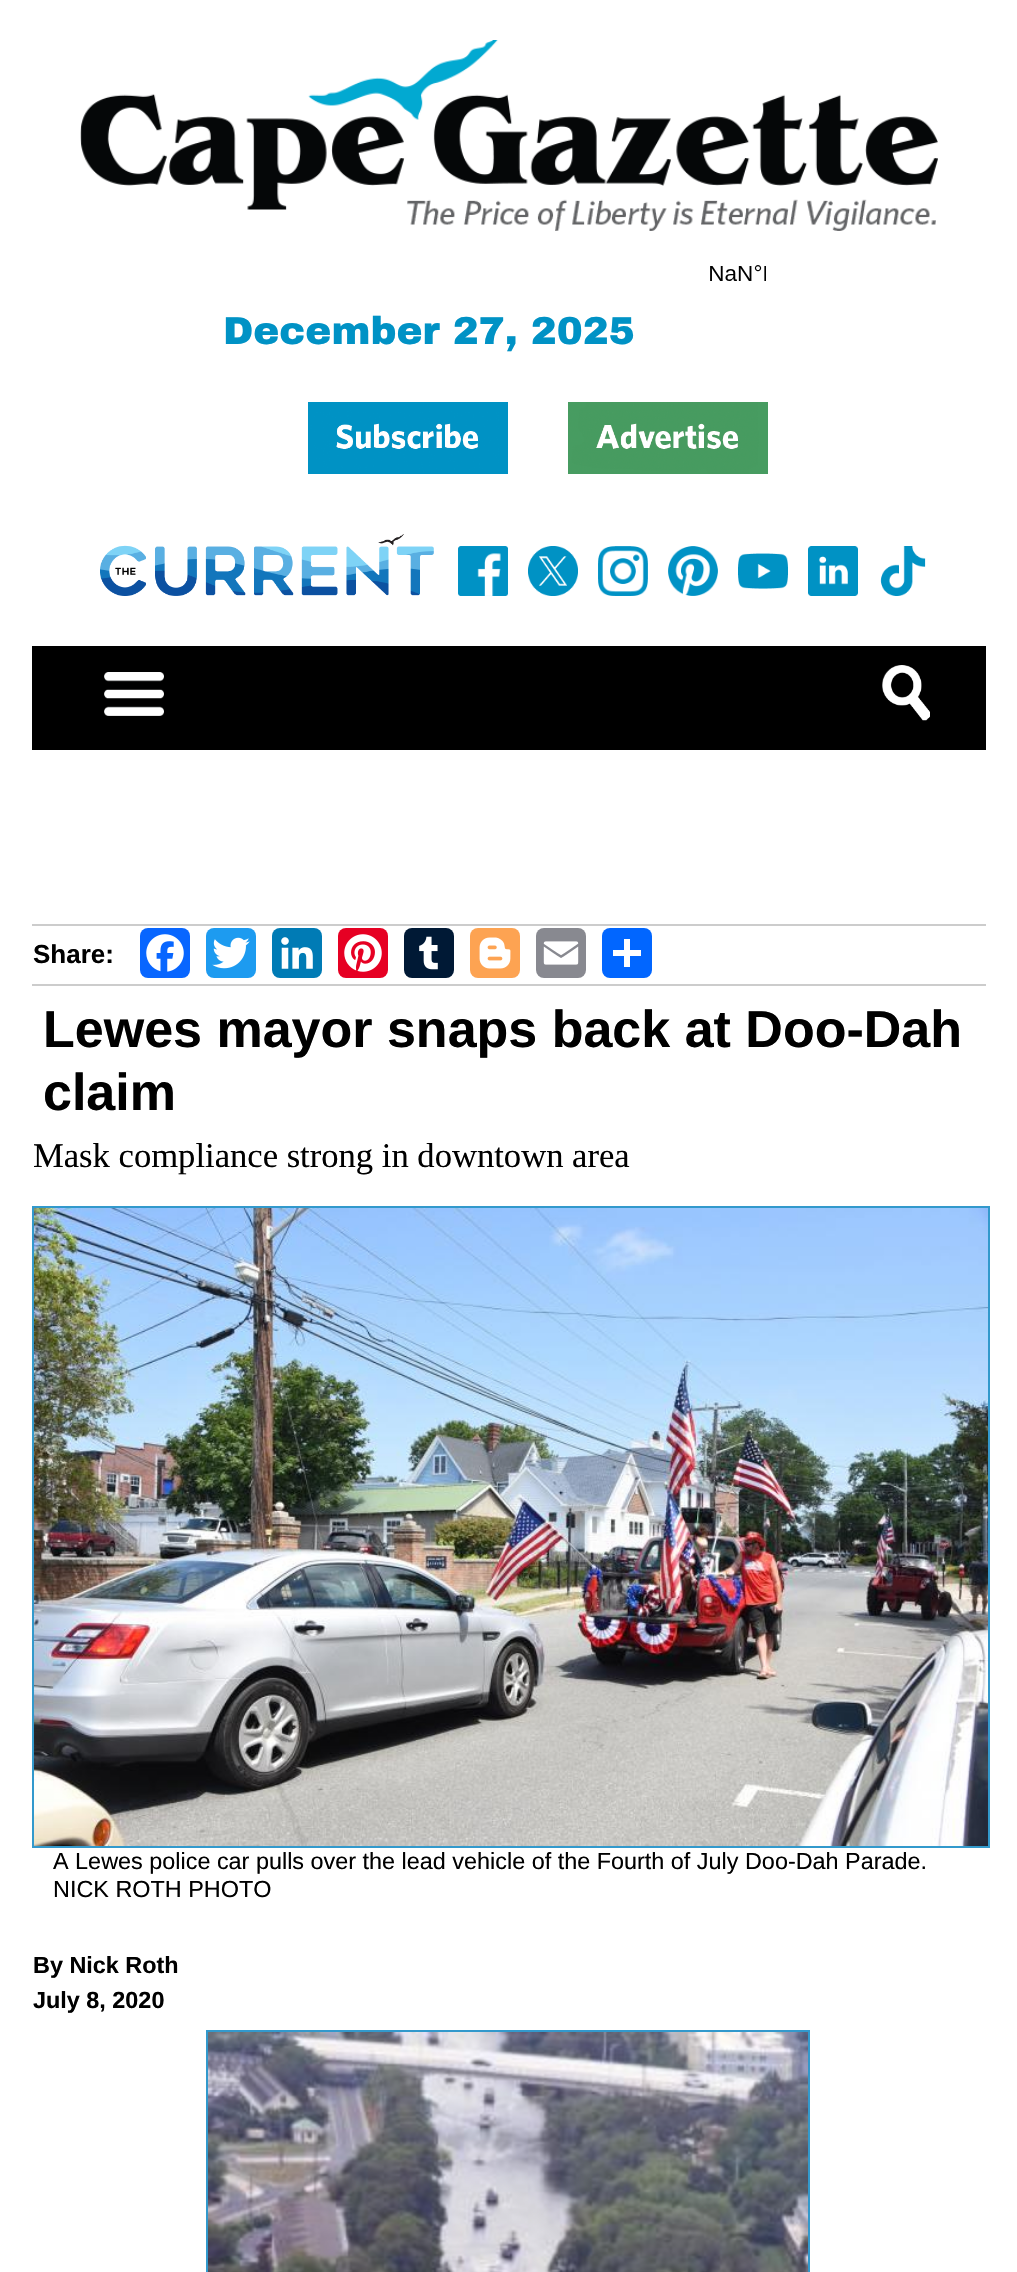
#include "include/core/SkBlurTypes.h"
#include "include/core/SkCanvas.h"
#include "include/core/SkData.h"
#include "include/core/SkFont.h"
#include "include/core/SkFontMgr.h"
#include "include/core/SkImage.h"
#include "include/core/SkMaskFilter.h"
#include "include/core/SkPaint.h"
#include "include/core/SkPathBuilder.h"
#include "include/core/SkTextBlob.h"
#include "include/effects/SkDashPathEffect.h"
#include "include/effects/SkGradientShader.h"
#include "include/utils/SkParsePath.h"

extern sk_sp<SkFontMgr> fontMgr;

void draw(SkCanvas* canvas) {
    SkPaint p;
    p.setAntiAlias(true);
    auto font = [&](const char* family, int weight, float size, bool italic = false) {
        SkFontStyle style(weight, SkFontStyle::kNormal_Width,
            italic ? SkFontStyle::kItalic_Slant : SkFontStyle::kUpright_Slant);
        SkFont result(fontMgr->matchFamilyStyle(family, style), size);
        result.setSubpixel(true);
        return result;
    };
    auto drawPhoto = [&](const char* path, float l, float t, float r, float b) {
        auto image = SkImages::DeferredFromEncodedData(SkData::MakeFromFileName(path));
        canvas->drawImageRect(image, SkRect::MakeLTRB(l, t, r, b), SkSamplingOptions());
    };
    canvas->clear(0xFFFFFFFF);
    drawPhoto("media/1.png", 80, 40, 938, 231);
    drawPhoto("media/2.png", 710, 265, 766, 281);
    auto font1 = font("Archivo Black", 900, 39);
    p.setColor(0xFF0092C5);
    canvas->drawString("December 27, 2025", 223, 344, font1, p);
    drawPhoto("media/3.png", 308, 402, 508, 474);
    drawPhoto("media/4.png", 568, 402, 768, 474);
    drawPhoto("media/5.png", 100, 534, 434, 596);
    drawPhoto("media/6.png", 458, 546, 508, 596);
    drawPhoto("media/7.png", 528, 546, 578, 596);
    drawPhoto("media/8.png", 598, 546, 648, 596);
    drawPhoto("media/9.png", 668, 546, 718, 596);
    drawPhoto("media/10.png", 738, 553, 788, 589);
    drawPhoto("media/11.png", 808, 546, 858, 596);
    drawPhoto("media/12.png", 880, 546, 926, 596);
    p.setColor(0xFF000000);
    canvas->drawRect(SkRect::MakeLTRB(32, 646, 986, 750), p);
    drawPhoto("media/13.png", 104, 672, 164, 716);
    drawPhoto("media/14.png", 882, 665, 930, 721);
    p.setColor(0xFFCCCCCC);
    canvas->drawRect(SkRect::MakeLTRB(32, 924, 986, 926), p);
    canvas->drawRect(SkRect::MakeLTRB(32, 984, 986, 986), p);
    auto font2 = font("Liberation Sans", 700, 26);
    p.setColor(0xFF000000);
    canvas->drawString("Share:", 33, 963, font2, p);
    p.setColor(0xFF0866FF);
    canvas->drawRoundRect(SkRect::MakeLTRB(140, 928, 190, 978), 8, 8, p);
    drawPhoto("media/15.png", 146, 934, 184, 972);
    p.setColor(0xFF1D9BF0);
    canvas->drawRoundRect(SkRect::MakeLTRB(206, 928, 256, 978), 8, 8, p);
    drawPhoto("media/16.png", 212, 937, 250, 969);
    p.setColor(0xFF007BB5);
    canvas->drawRoundRect(SkRect::MakeLTRB(272, 928, 322, 978), 8, 8, p);
    drawPhoto("media/17.png", 281, 937, 313, 969);
    p.setColor(0xFFE60023);
    canvas->drawRoundRect(SkRect::MakeLTRB(338, 928, 388, 978), 8, 8, p);
    drawPhoto("media/18.png", 344, 934, 382, 972);
    p.setColor(0xFF001935);
    canvas->drawRoundRect(SkRect::MakeLTRB(404, 928, 454, 978), 8, 8, p);
    drawPhoto("media/19.png", 419, 936, 438, 970);
    p.setColor(0xFFFDA352);
    canvas->drawRoundRect(SkRect::MakeLTRB(470, 928, 520, 978), 8, 8, p);
    drawPhoto("media/20.png", 479, 937, 511, 969);
    p.setColor(0xFF888990);
    canvas->drawRoundRect(SkRect::MakeLTRB(536, 928, 586, 978), 8, 8, p);
    drawPhoto("media/21.png", 543, 941, 579, 965);
    p.setColor(0xFF0166FF);
    canvas->drawRoundRect(SkRect::MakeLTRB(602, 928, 652, 978), 8, 8, p);
    p.setColor(0xFFFFFFFF);
    canvas->drawRect(SkRect::MakeLTRB(624, 939, 630, 967), p);
    canvas->drawRect(SkRect::MakeLTRB(613, 950, 641, 956), p);
    auto font3 = font("Liberation Sans", 700, 52);
    p.setColor(0xFF000000);
    canvas->drawString("Lewes mayor snaps back at Doo-Dah", 43, 1047, font3, p);
    canvas->drawString("claim", 43, 1110, font3, p);
    auto font4 = font("Liberation Serif", 400, 34.6f);
    canvas->drawString("Mask compliance strong in downtown area", 33, 1167, font4, p);
    p.setStyle(SkPaint::kStroke_Style);
    p.setStrokeWidth(2);
    p.setColor(0xFF3299CC);
    canvas->drawRect(SkRect::MakeLTRB(33, 1207, 989, 1847), p);
    drawPhoto("media/22.png", 34, 1208, 988, 1846);
    auto font5 = font("Liberation Sans", 400, 23.4f);
    p.setStyle(SkPaint::kFill_Style);
    p.setColor(0xFF000000);
    canvas->drawString("A Lewes police car pulls over the lead vehicle of the Fourth of July Doo-Dah Parade.", 53, 1869, font5, p);
    canvas->drawString("NICK ROTH PHOTO", 53, 1897, font5, p);
    auto font6 = font("Liberation Sans", 700, 23.4f);
    canvas->drawString("By Nick Roth", 33, 1973, font6, p);
    canvas->drawString("July 8, 2020", 33, 2008, font6, p);
    p.setStyle(SkPaint::kStroke_Style);
    p.setColor(0xFF3299CC);
    canvas->drawRect(SkRect::MakeLTRB(207, 2031, 809, 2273), p);
    drawPhoto("media/23.png", 208, 2032, 808, 2272);
}
